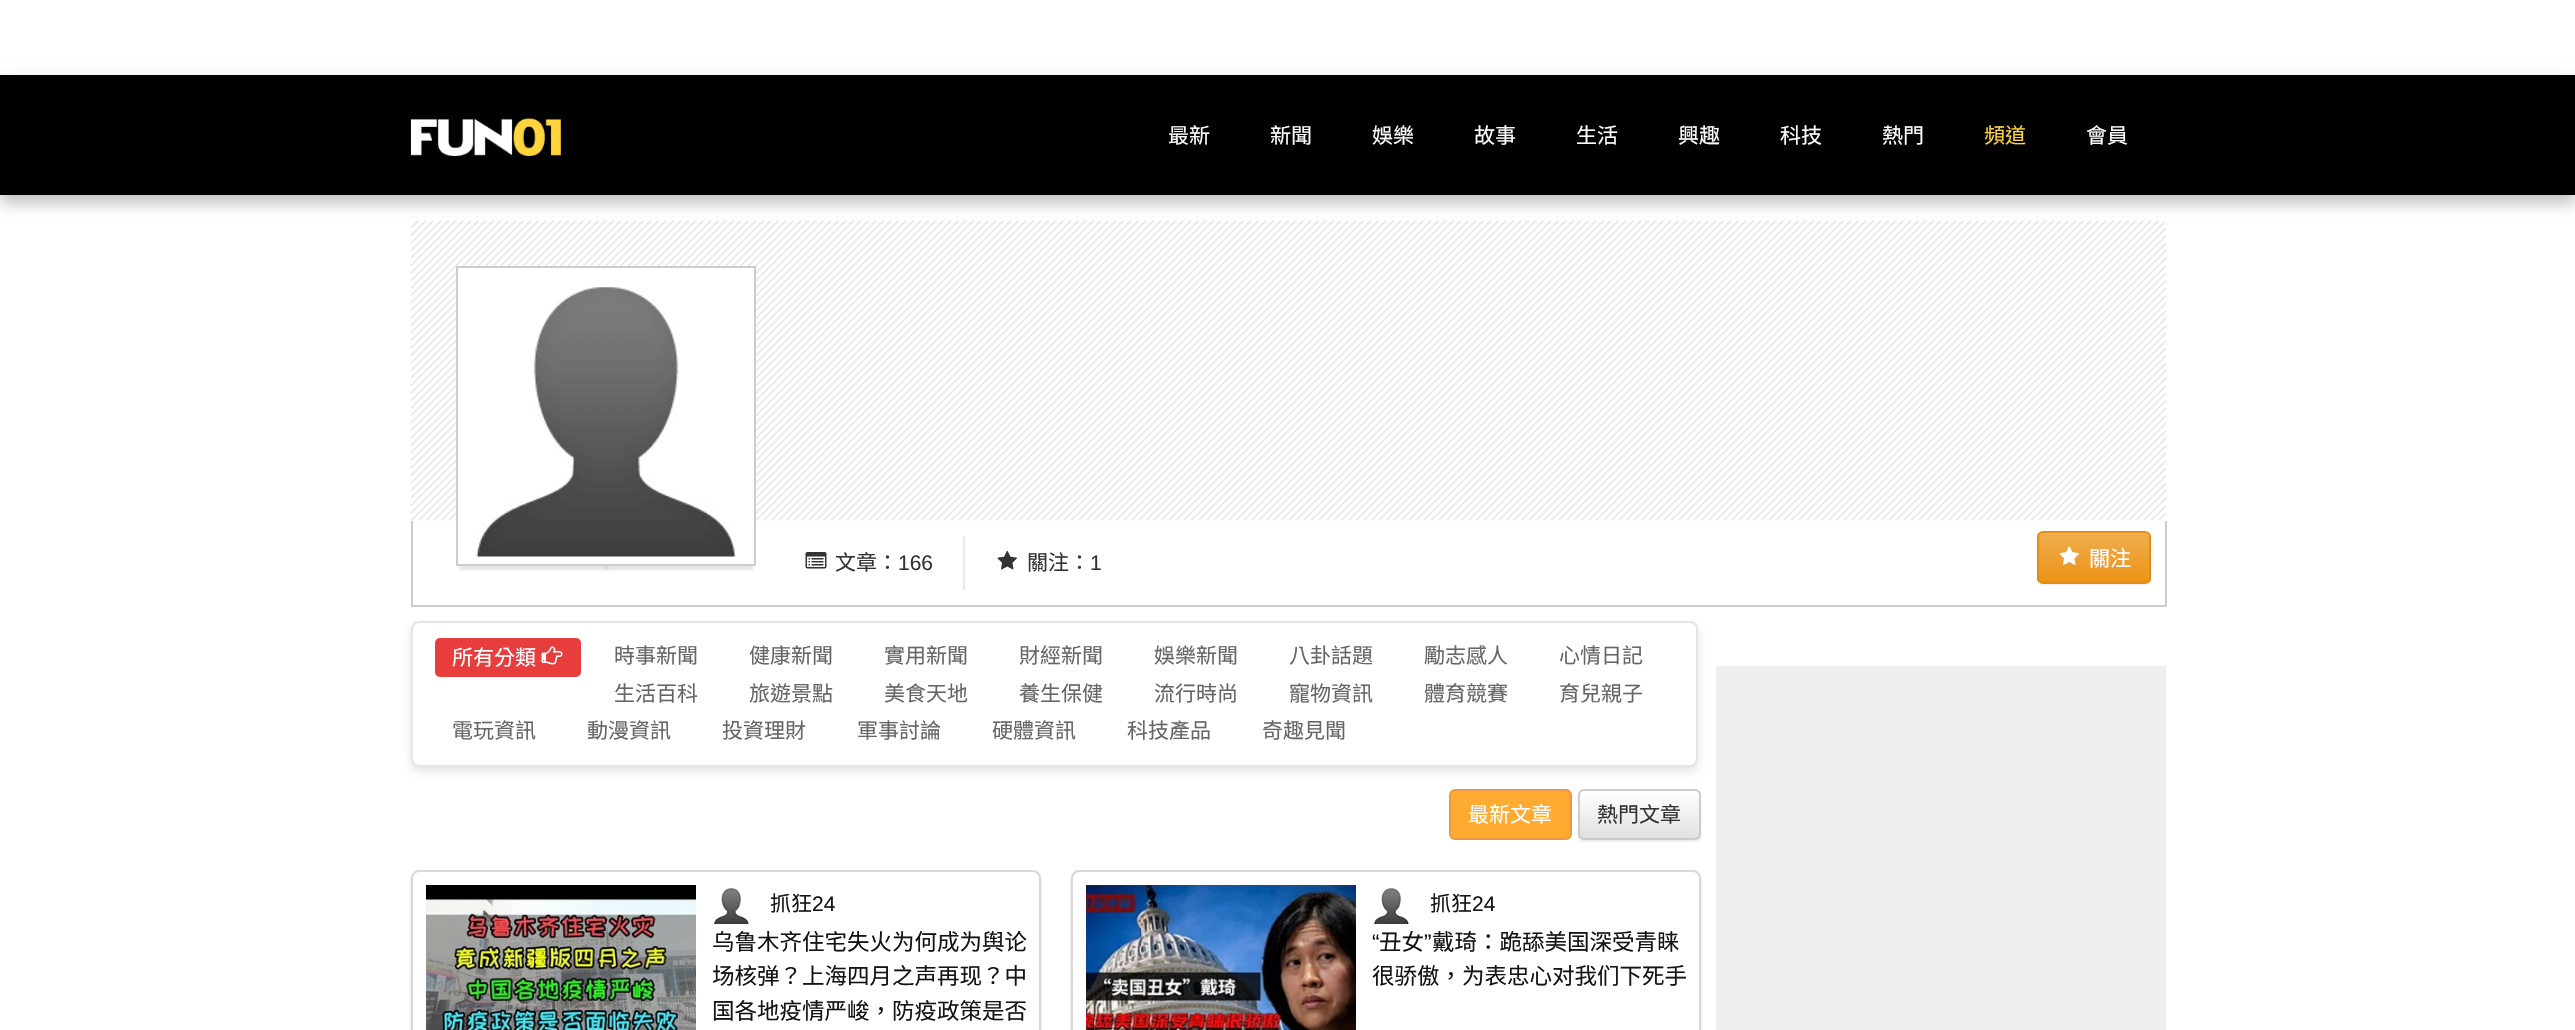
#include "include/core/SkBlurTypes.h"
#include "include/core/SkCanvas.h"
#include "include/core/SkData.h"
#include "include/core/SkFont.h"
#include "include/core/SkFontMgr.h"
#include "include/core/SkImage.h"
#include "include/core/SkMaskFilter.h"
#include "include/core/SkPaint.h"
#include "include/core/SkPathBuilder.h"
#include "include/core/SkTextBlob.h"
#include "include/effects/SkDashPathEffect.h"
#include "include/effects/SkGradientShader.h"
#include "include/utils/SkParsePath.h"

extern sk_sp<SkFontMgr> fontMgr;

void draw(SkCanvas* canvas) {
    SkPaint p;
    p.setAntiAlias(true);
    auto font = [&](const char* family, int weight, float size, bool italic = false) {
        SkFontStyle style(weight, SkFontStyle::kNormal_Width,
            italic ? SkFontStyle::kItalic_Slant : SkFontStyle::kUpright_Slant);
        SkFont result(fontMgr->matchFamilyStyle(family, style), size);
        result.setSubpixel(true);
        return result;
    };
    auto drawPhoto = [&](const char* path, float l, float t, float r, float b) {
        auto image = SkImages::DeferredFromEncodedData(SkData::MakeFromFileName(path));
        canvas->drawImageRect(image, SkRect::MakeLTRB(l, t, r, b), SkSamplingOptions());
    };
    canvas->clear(0xFFFFFFFF);
    drawPhoto("media/2.png", 411, 220, 2166, 521);
    p.setColor(0x40000000);
    p.setMaskFilter(SkMaskFilter::MakeBlur(kNormal_SkBlurStyle, 7.5f));
    canvas->drawRect(SkRect::MakeLTRB(0, 83, 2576, 203), p);
    p.setMaskFilter(nullptr);
    p.setColor(0xFF000000);
    canvas->drawRect(SkRect::MakeLTRB(0, 75, 2575, 195), p);
    drawPhoto("media/1.png", 410, 118, 561, 156);
    auto font1 = font("Noto Sans CJK TC", 400, 21);
    p.setColor(0xFFFFFFFF);
    {
        const struct { const char* s; float x, y; } items[] = {
            {"最新", 1168, 143},
            {"新聞", 1270, 143},
            {"娛樂", 1372, 143},
            {"故事", 1474, 143},
            {"生活", 1576, 143},
            {"興趣", 1678, 143},
            {"科技", 1780, 143},
            {"熱門", 1882, 143},
        };
        for (auto [s, x, y] : items) {
            canvas->drawString(s, x, y, font1, p);
        }
    }
    p.setColor(0xFFFFD43D);
    canvas->drawString("頻道", 1984, 143, font1, p);
    p.setColor(0xFFFFFFFF);
    canvas->drawString("會員", 2086, 143, font1, p);
    p.setColor(0x40969696);
    p.setMaskFilter(SkMaskFilter::MakeBlur(kNormal_SkBlurStyle, 1));
    canvas->drawRect(SkRect::MakeLTRB(459, 548, 608, 570), p);
    p.setMaskFilter(nullptr);
    p.setMaskFilter(SkMaskFilter::MakeBlur(kNormal_SkBlurStyle, 1));
    canvas->drawRect(SkRect::MakeLTRB(605, 548, 753, 570), p);
    p.setMaskFilter(nullptr);
    p.setColor(0xFFFFFFFF);
    canvas->drawRect(SkRect::MakeLTRB(457, 267, 755, 565), p);
    p.setStyle(SkPaint::kStroke_Style);
    p.setStrokeWidth(2);
    p.setColor(0xFFCCCCCC);
    canvas->drawRect(SkRect::MakeLTRB(457, 267, 755, 565), p);
    drawPhoto("media/3.png", 476, 287, 736, 557);
    p.setStyle(SkPaint::kFill_Style);
    {
        const struct { float l, t, r, b; SkColor color; } items[] = {
            {2165, 521, 2167, 606, 0xFFCCCCCC},
            {411, 605, 2166, 607, 0xFFCCCCCC},
            {411, 521, 413, 606, 0xFFCCCCCC},
            {963, 536, 965, 590, 0xFFE9EAED},
        };
        for (auto [l, t, r, b, color] : items) {
            p.setColor(color);
            canvas->drawRect(SkRect::MakeLTRB(l, t, r, b), p);
        }
    }
    drawPhoto("media/4.png", 805, 552, 827, 569);
    p.setColor(0xFF333333);
    canvas->drawString("文章：", 835, 570, font1, p);
    auto font2 = font("Liberation Sans", 400, 21);
    canvas->drawString("166", 898, 570, font2, p);
    drawPhoto("media/5.png", 997, 550, 1017, 570);
    canvas->drawString("關注：", 1027, 570, font1, p);
    canvas->drawString("1", 1090, 570, font2, p);
    p.setColor(0x12000000);
    p.setMaskFilter(SkMaskFilter::MakeBlur(kNormal_SkBlurStyle, 1));
    canvas->drawRoundRect(SkRect::MakeLTRB(2037, 533, 2151, 585), 6, 6, p);
    p.setMaskFilter(nullptr);
    canvas->save();
    canvas->clipPath(SkPathBuilder().moveTo(2043, 531).lineTo(2145, 531).cubicTo(2148.5f, 531, 2151, 533.5f, 2151, 537).lineTo(2151, 578).cubicTo(2151, 581.5f, 2148.5f, 584, 2145, 584).lineTo(2043, 584).cubicTo(2039.5f, 584, 2037, 581.5f, 2037, 578).lineTo(2037, 537).cubicTo(2037, 533.5f, 2039.5f, 531, 2043, 531).close().detach(), true);
    {
        const SkColor colors[] = {0xFFF0AD4E, 0xFFEB9316};
        const float stops[] = {0, 1};
        const SkPoint ends[] = {{2094, 533}, {2094, 582}};
        p.setShader(SkGradientShader::MakeLinear(ends, colors, stops, 2, SkTileMode::kClamp));
        p.setAlpha(255);
    }
    canvas->drawRect(SkRect::MakeLTRB(2037, 533, 2151, 582), p);
    canvas->restore();
    p.setShader(nullptr);
    p.setColor(0xFFF2B968);
    canvas->drawPath(SkPathBuilder().moveTo(2043, 534).lineTo(2145, 534).cubicTo(2147, 534, 2150, 536, 2150, 538).cubicTo(2150, 535, 2148, 533, 2145, 533).lineTo(2044, 533).cubicTo(2042, 533, 2041, 534, 2040, 535).close().detach(), p);
    p.setStyle(SkPaint::kStroke_Style);
    p.setColor(0xFFE38D13);
    canvas->drawRoundRect(SkRect::MakeLTRB(2038, 532, 2150, 583), 5, 5, p);
    drawPhoto("media/6.png", 2059, 546, 2079, 565);
    p.setStyle(SkPaint::kFill_Style);
    p.setColor(0xFFFFFFFF);
    canvas->drawString("關注", 2089, 566, font1, p);
    p.setColor(0x1C000000);
    p.setMaskFilter(SkMaskFilter::MakeBlur(kNormal_SkBlurStyle, 4));
    canvas->drawRoundRect(SkRect::MakeLTRB(411, 626, 1698, 771), 8, 8, p);
    p.setMaskFilter(nullptr);
    p.setColor(0xFFFFFFFF);
    canvas->drawRoundRect(SkRect::MakeLTRB(412, 622, 1697, 766), 7, 7, p);
    p.setStyle(SkPaint::kStroke_Style);
    p.setColor(0xFFE5E5E5);
    canvas->drawRoundRect(SkRect::MakeLTRB(412, 622, 1697, 766), 7, 7, p);
    p.setStyle(SkPaint::kFill_Style);
    p.setColor(0xFFE73D3D);
    canvas->drawRoundRect(SkRect::MakeLTRB(435, 638, 581, 677), 5, 5, p);
    p.setColor(0xFFFFFFFF);
    canvas->drawString("所有分類", 452, 665, font1, p);
    drawPhoto("media/7.png", 541, 646, 563, 665);
    p.setColor(0xFF666666);
    {
        const struct { const char* s; float x, y; } items[] = {
            {"時事新聞", 614, 663},
            {"健康新聞", 749, 663},
            {"實用新聞", 884, 663},
            {"財經新聞", 1019, 663},
            {"娛樂新聞", 1154, 663},
            {"八卦話題", 1289, 663},
            {"勵志感人", 1424, 663},
            {"心情日記", 1559, 663},
            {"生活百科", 614, 701},
            {"旅遊景點", 749, 701},
            {"美食天地", 884, 701},
            {"養生保健", 1019, 701},
            {"流行時尚", 1154, 701},
            {"寵物資訊", 1289, 701},
            {"體育競賽", 1424, 701},
            {"育兒親子", 1559, 701},
            {"電玩資訊", 452, 738},
            {"動漫資訊", 587, 738},
            {"投資理財", 722, 738},
            {"軍事討論", 857, 738},
            {"硬體資訊", 992, 738},
            {"科技產品", 1127, 738},
            {"奇趣見聞", 1262, 738},
        };
        for (auto [s, x, y] : items) {
            canvas->drawString(s, x, y, font1, p);
        }
    }
    p.setColor(0xFFFFAA31);
    canvas->drawRoundRect(SkRect::MakeLTRB(1450, 790, 1571, 839), 5, 5, p);
    p.setStyle(SkPaint::kStroke_Style);
    p.setColor(0xFFEA9748);
    canvas->drawRoundRect(SkRect::MakeLTRB(1450, 790, 1571, 839), 5, 5, p);
    p.setStyle(SkPaint::kFill_Style);
    p.setColor(0xFFFFFFFF);
    canvas->drawString("最新文章", 1468, 822, font1, p);
    p.setColor(0x12000000);
    p.setMaskFilter(SkMaskFilter::MakeBlur(kNormal_SkBlurStyle, 1));
    canvas->drawRoundRect(SkRect::MakeLTRB(1578, 791, 1701, 842), 6, 6, p);
    p.setMaskFilter(nullptr);
    canvas->save();
    canvas->clipPath(SkPathBuilder().moveTo(1584, 789).lineTo(1695, 789).cubicTo(1698.5f, 789, 1701, 791.5f, 1701, 795).lineTo(1701, 834).cubicTo(1701, 837.5f, 1698.5f, 840, 1695, 840).lineTo(1584, 840).cubicTo(1580.5f, 840, 1578, 837.5f, 1578, 834).lineTo(1578, 795).cubicTo(1578, 791.5f, 1580.5f, 789, 1584, 789).close().detach(), true);
    {
        const SkColor colors[] = {0xFFFFFFFF, 0xFFE0E0E0};
        const float stops[] = {0, 1};
        const SkPoint ends[] = {{1640, 791}, {1640, 839}};
        p.setShader(SkGradientShader::MakeLinear(ends, colors, stops, 2, SkTileMode::kClamp));
        p.setAlpha(255);
    }
    canvas->drawRect(SkRect::MakeLTRB(1578, 791, 1701, 839), p);
    canvas->restore();
    p.setStyle(SkPaint::kStroke_Style);
    p.setShader(nullptr);
    p.setColor(0xFFCCCCCC);
    canvas->drawRoundRect(SkRect::MakeLTRB(1579, 790, 1700, 839), 5, 5, p);
    p.setStyle(SkPaint::kFill_Style);
    p.setColor(0xFF333333);
    canvas->drawString("熱門文章", 1597, 822, font1, p);
    canvas->save();
    canvas->clipPath(SkPathBuilder(SkPathFillType::kEvenOdd).moveTo(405, 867).lineTo(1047, 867).lineTo(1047, 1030).lineTo(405, 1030).close().moveTo(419, 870).lineTo(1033, 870).cubicTo(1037.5f, 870, 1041, 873.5f, 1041, 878).lineTo(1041, 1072).cubicTo(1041, 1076.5f, 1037.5f, 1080, 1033, 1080).lineTo(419, 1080).cubicTo(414.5f, 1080, 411, 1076.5f, 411, 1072).lineTo(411, 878).cubicTo(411, 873.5f, 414.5f, 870, 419, 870).close().detach(), true);
    p.setColor(0x26000000);
    p.setMaskFilter(SkMaskFilter::MakeBlur(kNormal_SkBlurStyle, 1.5f));
    canvas->drawRoundRect(SkRect::MakeLTRB(411, 873, 1041, 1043), 8, 8, p);
    p.setMaskFilter(nullptr);
    canvas->restore();
    p.setStyle(SkPaint::kStroke_Style);
    p.setColor(0xFFD8D8D8);
    canvas->drawRoundRect(SkRect::MakeLTRB(412, 871, 1040, 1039), 7, 7, p);
    drawPhoto("media/8.png", 426, 885, 696, 1030);
    drawPhoto("media/9.png", 714, 888, 749, 924);
    p.setStyle(SkPaint::kFill_Style);
    p.setColor(0xFF141414);
    canvas->drawString("抓狂", 770, 911, font1, p);
    canvas->drawString("24", 812, 911, font2, p);
    auto font3 = font("Noto Sans CJK TC", 400, 22.5f);
    {
        const struct { const char* s; float x, y; } items[] = {
            {"乌鲁木齐住宅失火为何成为舆论", 712, 950},
            {"场核弹？上海四月之声再现？中", 712, 984},
            {"国各地疫情严峻，防疫政策是否", 712, 1019},
        };
        for (auto [s, x, y] : items) {
            canvas->drawString(s, x, y, font3, p);
        }
    }
    canvas->save();
    canvas->clipPath(SkPathBuilder(SkPathFillType::kEvenOdd).moveTo(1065, 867).lineTo(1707, 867).lineTo(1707, 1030).lineTo(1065, 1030).close().moveTo(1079, 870).lineTo(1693, 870).cubicTo(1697.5f, 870, 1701, 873.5f, 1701, 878).lineTo(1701, 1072).cubicTo(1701, 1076.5f, 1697.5f, 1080, 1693, 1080).lineTo(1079, 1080).cubicTo(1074.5f, 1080, 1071, 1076.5f, 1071, 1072).lineTo(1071, 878).cubicTo(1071, 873.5f, 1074.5f, 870, 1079, 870).close().detach(), true);
    p.setColor(0x26000000);
    p.setMaskFilter(SkMaskFilter::MakeBlur(kNormal_SkBlurStyle, 1.5f));
    canvas->drawRoundRect(SkRect::MakeLTRB(1071, 873, 1701, 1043), 8, 8, p);
    p.setMaskFilter(nullptr);
    canvas->restore();
    p.setStyle(SkPaint::kStroke_Style);
    p.setColor(0xFFD8D8D8);
    canvas->drawRoundRect(SkRect::MakeLTRB(1072, 871, 1700, 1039), 7, 7, p);
    drawPhoto("media/10.png", 1086, 885, 1356, 1030);
    drawPhoto("media/9.png", 1374, 888, 1409, 924);
    p.setStyle(SkPaint::kFill_Style);
    p.setColor(0xFF141414);
    canvas->drawString("抓狂", 1430, 911, font1, p);
    canvas->drawString("24", 1472, 911, font2, p);
    auto font4 = font("Liberation Sans", 400, 22.5f);
    canvas->drawString("“", 1372, 950, font4, p);
    canvas->drawString("丑女", 1379, 950, font3, p);
    canvas->drawString("”", 1424, 950, font4, p);
    canvas->drawString("戴琦：跪舔美国深受青睐", 1432, 950, font3, p);
    canvas->drawString("很骄傲，为表忠心对我们下死手", 1372, 984, font3, p);
    p.setColor(0xFFEFEFEF);
    canvas->drawRect(SkRect::MakeLTRB(1716, 666, 2166, 1030), p);
}
